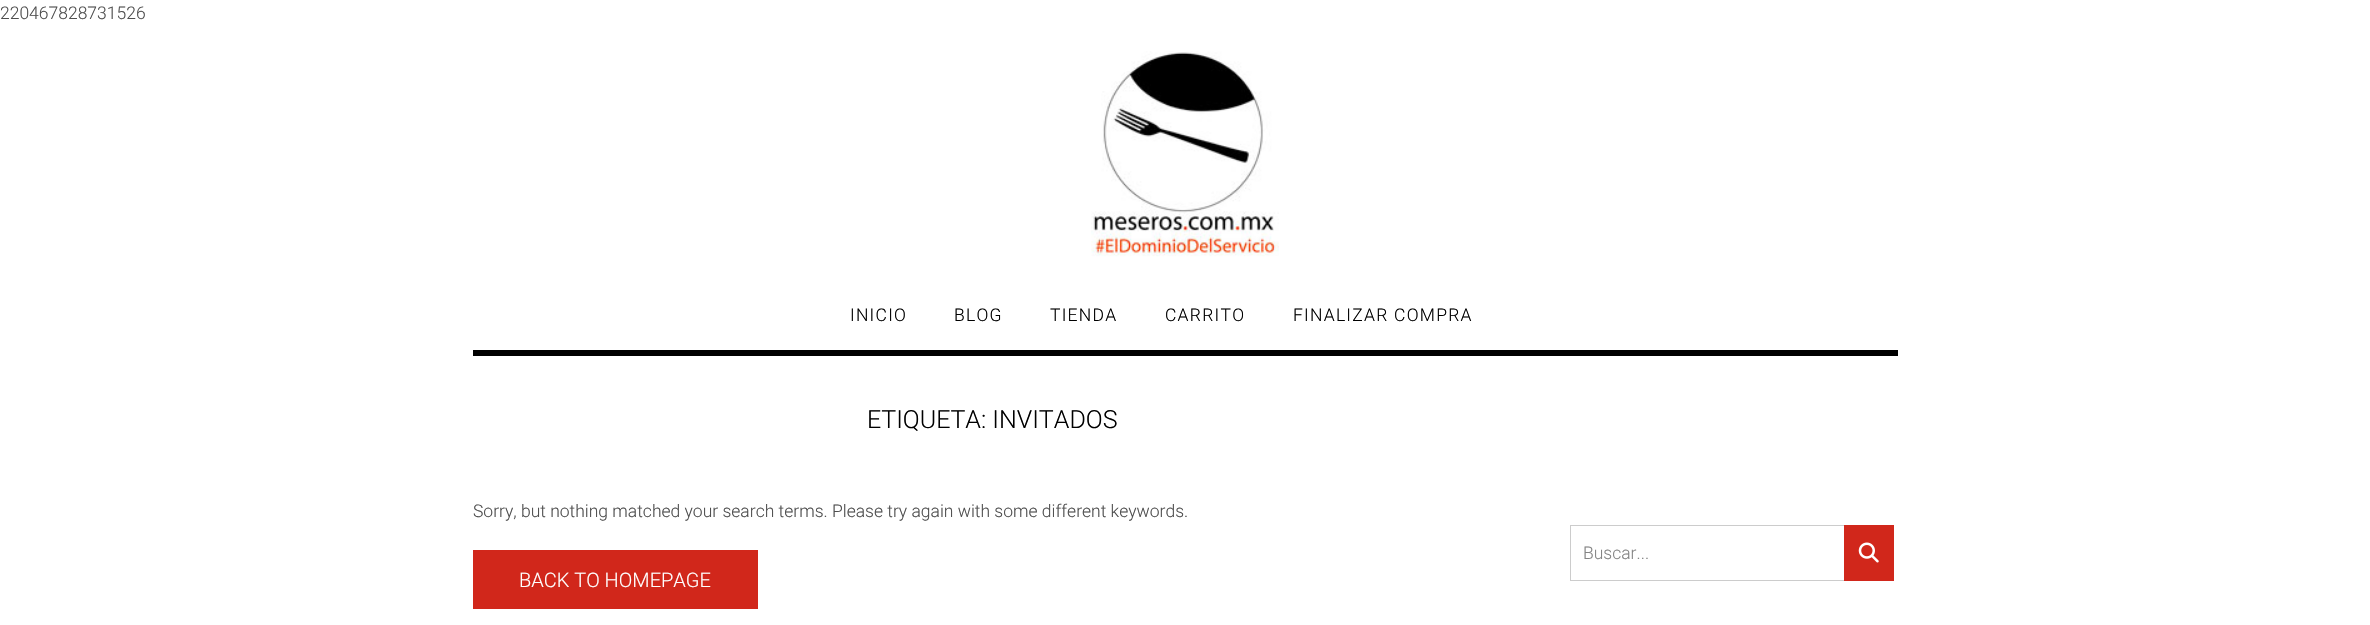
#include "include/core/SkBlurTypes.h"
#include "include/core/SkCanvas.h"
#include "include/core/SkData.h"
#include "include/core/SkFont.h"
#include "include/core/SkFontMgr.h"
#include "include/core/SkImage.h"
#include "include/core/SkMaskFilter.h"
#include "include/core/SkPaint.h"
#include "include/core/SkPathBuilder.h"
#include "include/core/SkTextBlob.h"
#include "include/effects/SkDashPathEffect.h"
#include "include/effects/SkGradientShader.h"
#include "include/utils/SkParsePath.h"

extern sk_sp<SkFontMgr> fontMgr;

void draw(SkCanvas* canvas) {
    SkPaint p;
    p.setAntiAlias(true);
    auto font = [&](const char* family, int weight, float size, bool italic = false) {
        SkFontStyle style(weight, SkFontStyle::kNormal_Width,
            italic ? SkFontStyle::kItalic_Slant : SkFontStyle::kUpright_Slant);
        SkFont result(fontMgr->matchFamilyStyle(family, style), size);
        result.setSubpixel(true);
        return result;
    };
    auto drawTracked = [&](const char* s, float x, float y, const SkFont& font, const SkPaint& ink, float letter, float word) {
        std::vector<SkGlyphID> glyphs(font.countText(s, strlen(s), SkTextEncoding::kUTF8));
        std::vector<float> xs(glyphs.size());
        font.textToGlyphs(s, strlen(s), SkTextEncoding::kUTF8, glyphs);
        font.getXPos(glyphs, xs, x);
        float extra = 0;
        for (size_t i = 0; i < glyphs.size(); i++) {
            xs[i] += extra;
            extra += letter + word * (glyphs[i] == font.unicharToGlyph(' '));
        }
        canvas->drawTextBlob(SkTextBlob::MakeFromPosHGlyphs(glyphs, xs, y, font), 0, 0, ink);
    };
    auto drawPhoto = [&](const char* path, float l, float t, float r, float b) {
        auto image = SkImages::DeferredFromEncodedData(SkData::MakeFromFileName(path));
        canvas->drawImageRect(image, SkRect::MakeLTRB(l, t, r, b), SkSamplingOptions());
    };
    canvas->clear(0xFFFFFFFF);
    auto font1 = font("Roboto", 300, 17.5f);
    p.setColor(0xFF4F4F4F);
    canvas->drawString("220467828731526", 0, 19, font1, p);
    drawPhoto("media/1.png", 1091, 51, 1279, 257);
    p.setColor(0xFF000000);
    canvas->drawRect(SkRect::MakeLTRB(473, 350, 1898, 356), p);
    {
        const struct { const char* s; float x, y; } items[] = {
            {"INICIO", 850, 321},
            {"BLOG", 954, 321},
            {"TIENDA", 1050, 321},
            {"CARRITO", 1165, 321},
            {"FINALIZAR COMPRA", 1293, 321},
        };
        for (auto [s, x, y] : items) {
            drawTracked(s, x, y, font1, p, 1.25f, 0);
        }
    }
    auto font2 = font("Roboto", 300, 25);
    canvas->drawString("ETIQUETA: INVITADOS", 867, 428, font2, p);
    p.setColor(0xFF4F4F4F);
    canvas->drawString("Sorry, but nothing matched your search terms. Please try again with some different keywords.", 473, 517, font1, p);
    p.setColor(0xFFD1271B);
    canvas->drawRect(SkRect::MakeLTRB(473, 550, 758, 609), p);
    auto font3 = font("Roboto", 300, 20);
    p.setColor(0xFFFFFFFF);
    canvas->drawString("BACK TO HOMEPAGE", 519, 587, font3, p);
    {
        const struct { float l, t, r, b; SkColor color; } items[] = {
            {1570, 525, 1844, 526, 0xFFCCCCCC},
            {1570, 580, 1844, 581, 0xFFCCCCCC},
            {1570, 525, 1571, 581, 0xFFCCCCCC},
        };
        for (auto [l, t, r, b, color] : items) {
            p.setColor(color);
            canvas->drawRect(SkRect::MakeLTRB(l, t, r, b), p);
        }
    }
    p.setColor(0xFF848484);
    canvas->drawString("Buscar...", 1583, 559, font1, p);
    p.setColor(0xFFD1271B);
    canvas->drawRect(SkRect::MakeLTRB(1844, 525, 1894, 581), p);
    drawPhoto("media/2.png", 1858, 542, 1879, 563);
}
